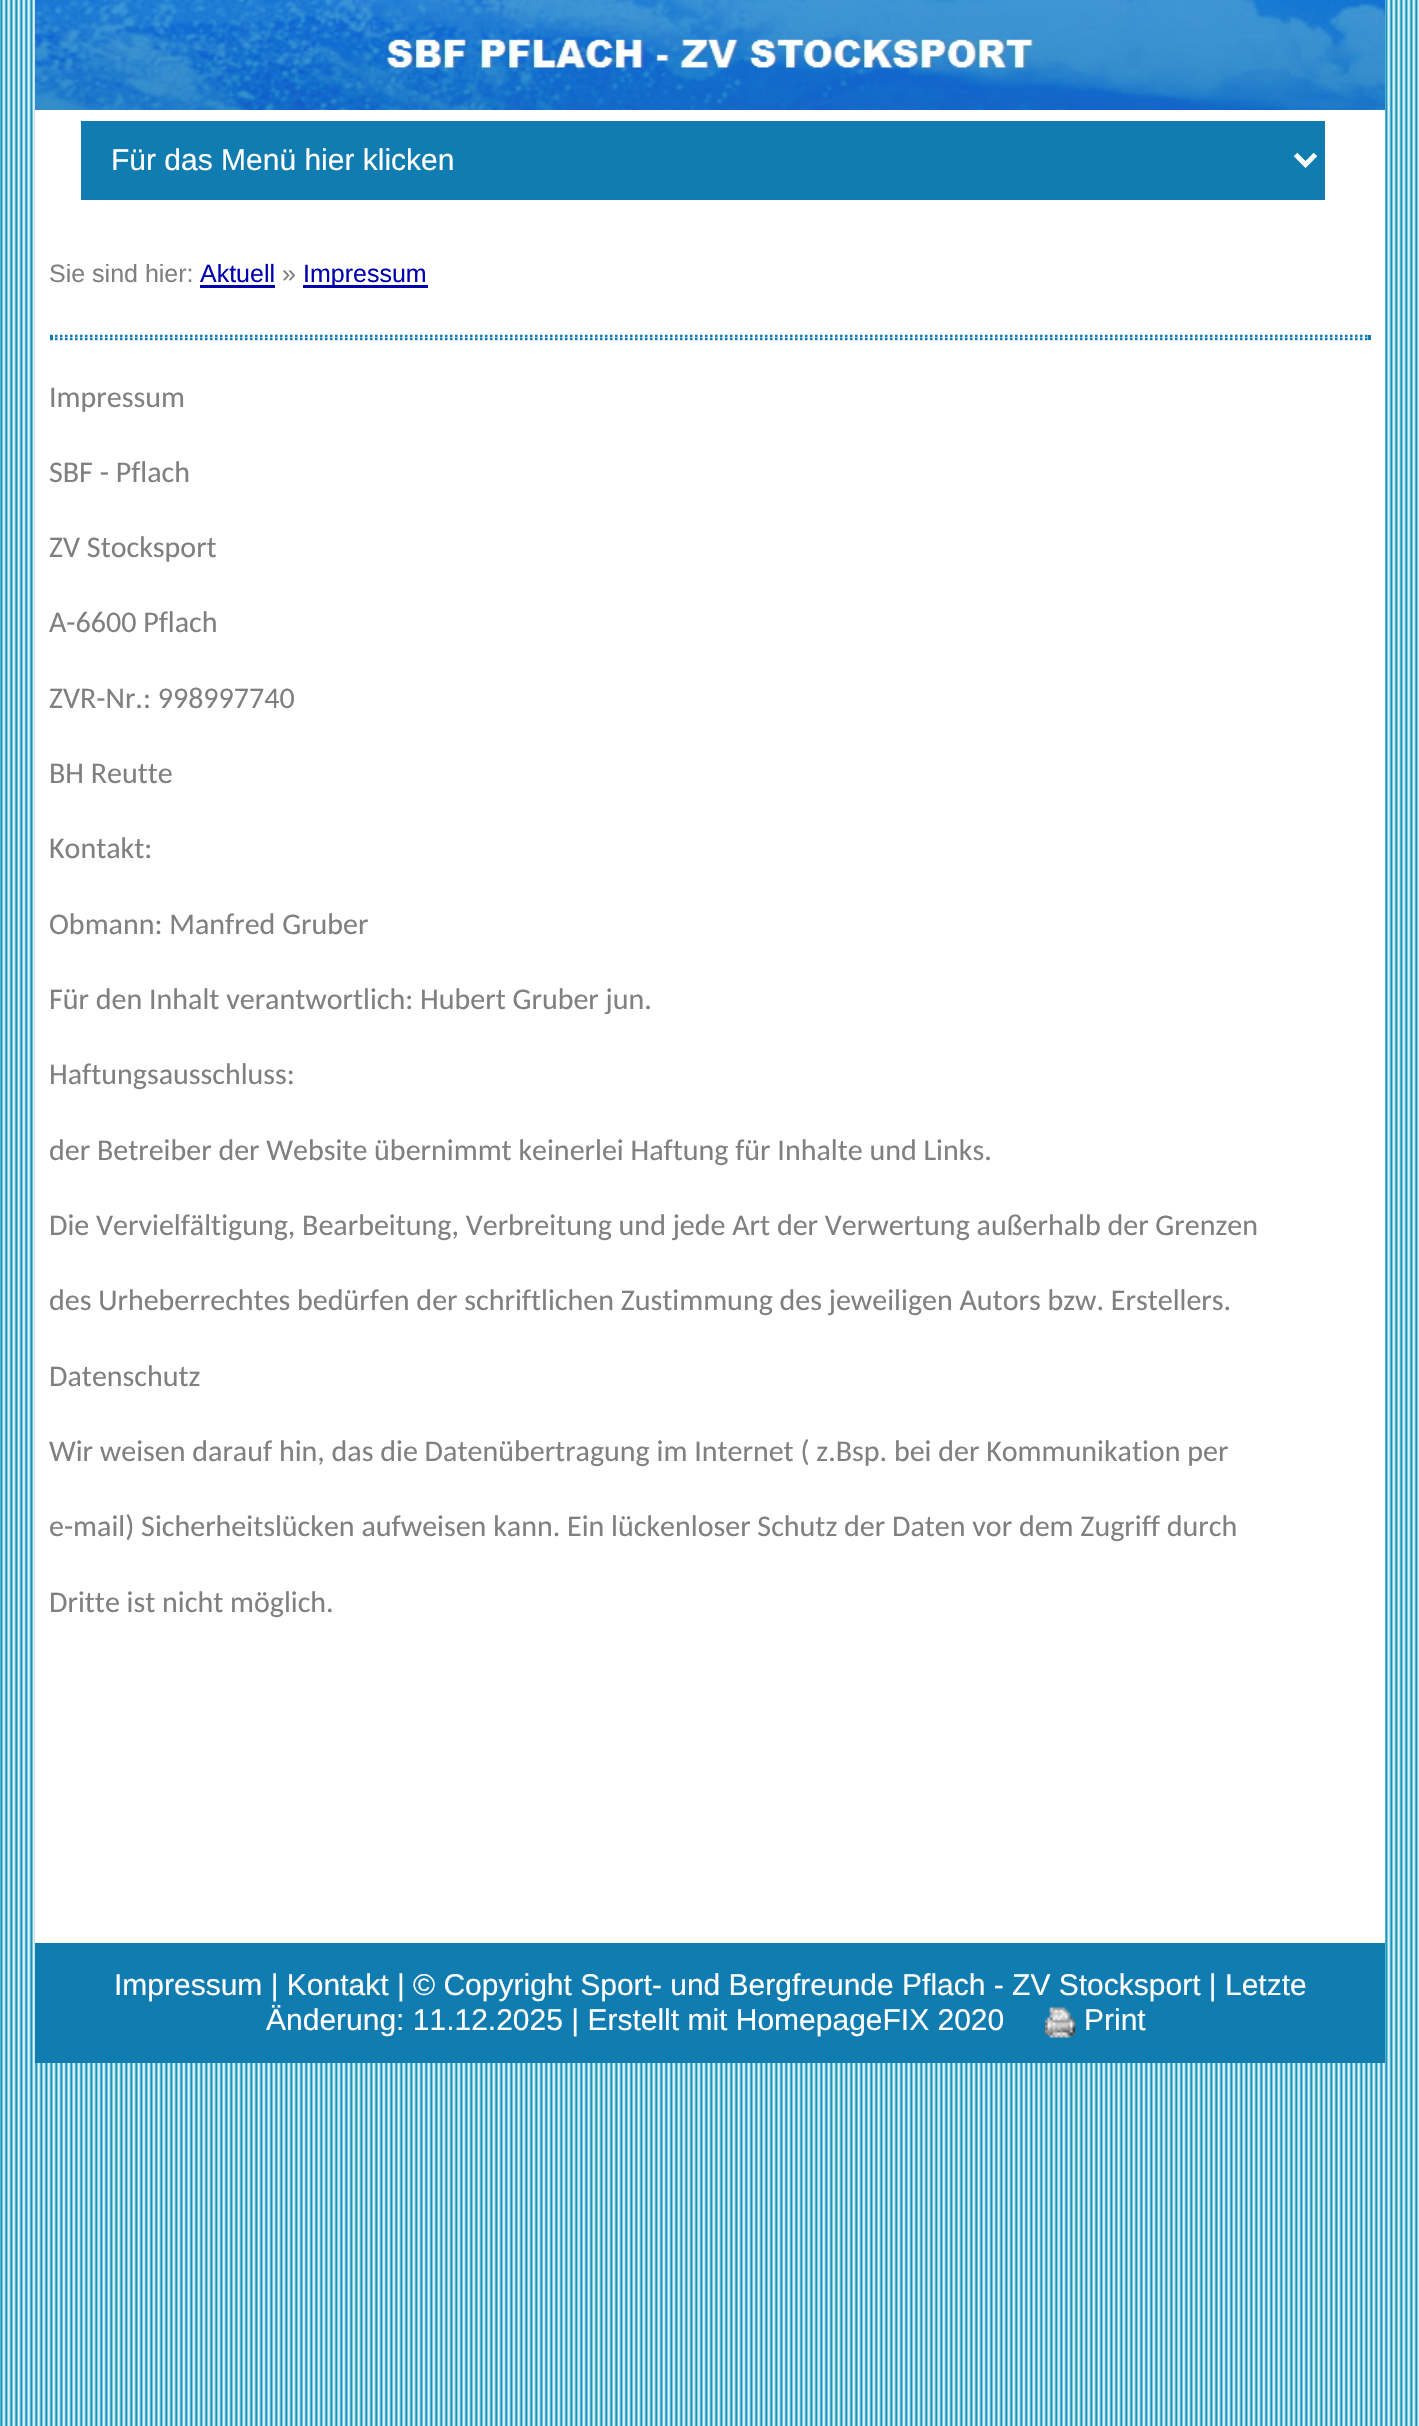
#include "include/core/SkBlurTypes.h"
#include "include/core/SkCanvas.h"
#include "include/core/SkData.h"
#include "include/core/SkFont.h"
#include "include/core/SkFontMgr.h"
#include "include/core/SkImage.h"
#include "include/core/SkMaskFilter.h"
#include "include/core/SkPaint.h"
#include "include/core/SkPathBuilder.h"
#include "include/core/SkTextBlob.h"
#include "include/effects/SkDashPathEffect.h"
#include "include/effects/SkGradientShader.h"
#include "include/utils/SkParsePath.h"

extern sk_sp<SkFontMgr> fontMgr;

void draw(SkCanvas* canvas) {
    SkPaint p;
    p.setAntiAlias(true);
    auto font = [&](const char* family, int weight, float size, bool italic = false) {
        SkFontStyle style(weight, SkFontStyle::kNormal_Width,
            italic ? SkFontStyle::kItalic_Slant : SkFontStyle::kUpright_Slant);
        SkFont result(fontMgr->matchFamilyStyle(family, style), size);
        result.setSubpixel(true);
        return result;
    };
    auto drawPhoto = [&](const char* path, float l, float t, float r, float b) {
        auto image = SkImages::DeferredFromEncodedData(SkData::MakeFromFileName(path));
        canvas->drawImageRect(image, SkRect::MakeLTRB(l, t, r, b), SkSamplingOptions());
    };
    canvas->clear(0xFF0691B9);
    drawPhoto("media/1.png", 0, 0, 1419, 2426);
    drawPhoto("media/2.png", 35, 0, 1385, 110);
    p.setColor(0xFFFFFFFF);
    canvas->drawRect(SkRect::MakeLTRB(35, 110, 1385, 1943), p);
    p.setColor(0xFF117CB0);
    canvas->drawRect(SkRect::MakeLTRB(81, 121, 1325, 200), p);
    p.setStyle(SkPaint::kStroke_Style);
    p.setStrokeWidth(5);
    p.setColor(0xFFFFFFFF);
    canvas->drawPath(SkPathBuilder().moveTo(1295.5f, 154.5f).lineTo(1305.5f, 164.5f).lineTo(1315.5f, 154.5f).detach(), p);
    auto font1 = font("Liberation Sans", 400, 30);
    p.setStyle(SkPaint::kFill_Style);
    canvas->drawString("Für das Menü hier klicken", 111, 170, font1, p);
    auto font2 = font("Liberation Sans", 400, 25);
    p.setColor(0xFF808080);
    canvas->drawString("Sie sind hier:", 49, 282, font2, p);
    p.setColor(0xFF0000AD);
    canvas->drawString("Aktuell", 200, 282, font2, p);
    canvas->drawRect(SkRect::MakeLTRB(200, 285, 275, 288), p);
    p.setColor(0xFF808080);
    canvas->drawString("»", 282, 282, font2, p);
    p.setColor(0xFF0000AD);
    canvas->drawRect(SkRect::MakeLTRB(303, 285, 428, 288), p);
    canvas->drawString("Impressum", 303, 282, font2, p);
    p.setStyle(SkPaint::kStroke_Style);
    p.setStrokeWidth(2.5f);
    p.setColor(0xFF117CB0);
    p.setPathEffect(SkDashPathEffect::Make({{2.5f, 2.5f}}, 0));
    canvas->drawPath(SkPathBuilder().moveTo(50, 336).lineTo(1370, 336).detach(), p);
    p.setPathEffect(nullptr);
    p.setStyle(SkPaint::kFill_Style);
    canvas->drawRect(SkRect::MakeLTRB(1368, 335, 1371, 340), p);
    p.setStyle(SkPaint::kStroke_Style);
    p.setPathEffect(SkDashPathEffect::Make({{2.5f, 2.5f}}, 0));
    canvas->drawPath(SkPathBuilder().moveTo(50, 339).lineTo(1370, 339).detach(), p);
    p.setPathEffect(nullptr);
    p.setStyle(SkPaint::kFill_Style);
    canvas->drawRect(SkRect::MakeLTRB(50, 335, 53, 340), p);
    auto font3 = font("Carlito", 400, 30);
    p.setColor(0xFF808080);
    {
        const struct { const char* s; float x, y; } items[] = {
            {"Impressum", 49, 407},
            {"SBF - Pflach", 49, 482},
            {"ZV Stocksport", 49, 557},
            {"A-6600 Pflach", 49, 632},
            {"ZVR-Nr.: 998997740", 49, 708},
            {"BH Reutte", 49, 783},
            {"Kontakt:", 49, 858},
            {"Obmann: Manfred Gruber", 49, 934},
            {"Für den Inhalt verantwortlich: Hubert Gruber jun.", 49, 1009},
            {"Haftungsausschluss:", 49, 1084},
            {"der Betreiber der Website übernimmt keinerlei Haftung für Inhalte und Links.", 49, 1160},
            {"Die Vervielfältigung, Bearbeitung, Verbreitung und jede Art der Verwertung außerhalb der Grenzen", 49, 1235},
            {"des Urheberrechtes bedürfen der schriftlichen Zustimmung des jeweiligen Autors bzw. Erstellers.", 49, 1310},
            {"Datenschutz", 49, 1386},
            {"Wir weisen darauf hin, das die Datenübertragung im Internet ( z.Bsp. bei der Kommunikation per", 49, 1461},
            {"e-mail) Sicherheitslücken aufweisen kann. Ein lückenloser Schutz der Daten vor dem Zugriff durch", 49, 1536},
            {"Dritte ist nicht möglich.", 49, 1612},
        };
        for (auto [s, x, y] : items) {
            canvas->drawString(s, x, y, font3, p);
        }
    }
    p.setColor(0xFF117CB0);
    canvas->drawRect(SkRect::MakeLTRB(35, 1943, 1385, 2063), p);
    p.setColor(0xFFFFFFFF);
    canvas->drawString("Impressum | Kontakt | © Copyright Sport- und Bergfreunde Pflach - ZV Stocksport | Letzte", 114, 1995, font1, p);
    canvas->drawString("Änderung: 11.12.2025 | Erstellt mit HomepageFIX 2020", 266, 2030, font1, p);
    drawPhoto("media/3.png", 1045, 2007, 1075, 2038);
    canvas->drawString("Print", 1084, 2030, font1, p);
}
